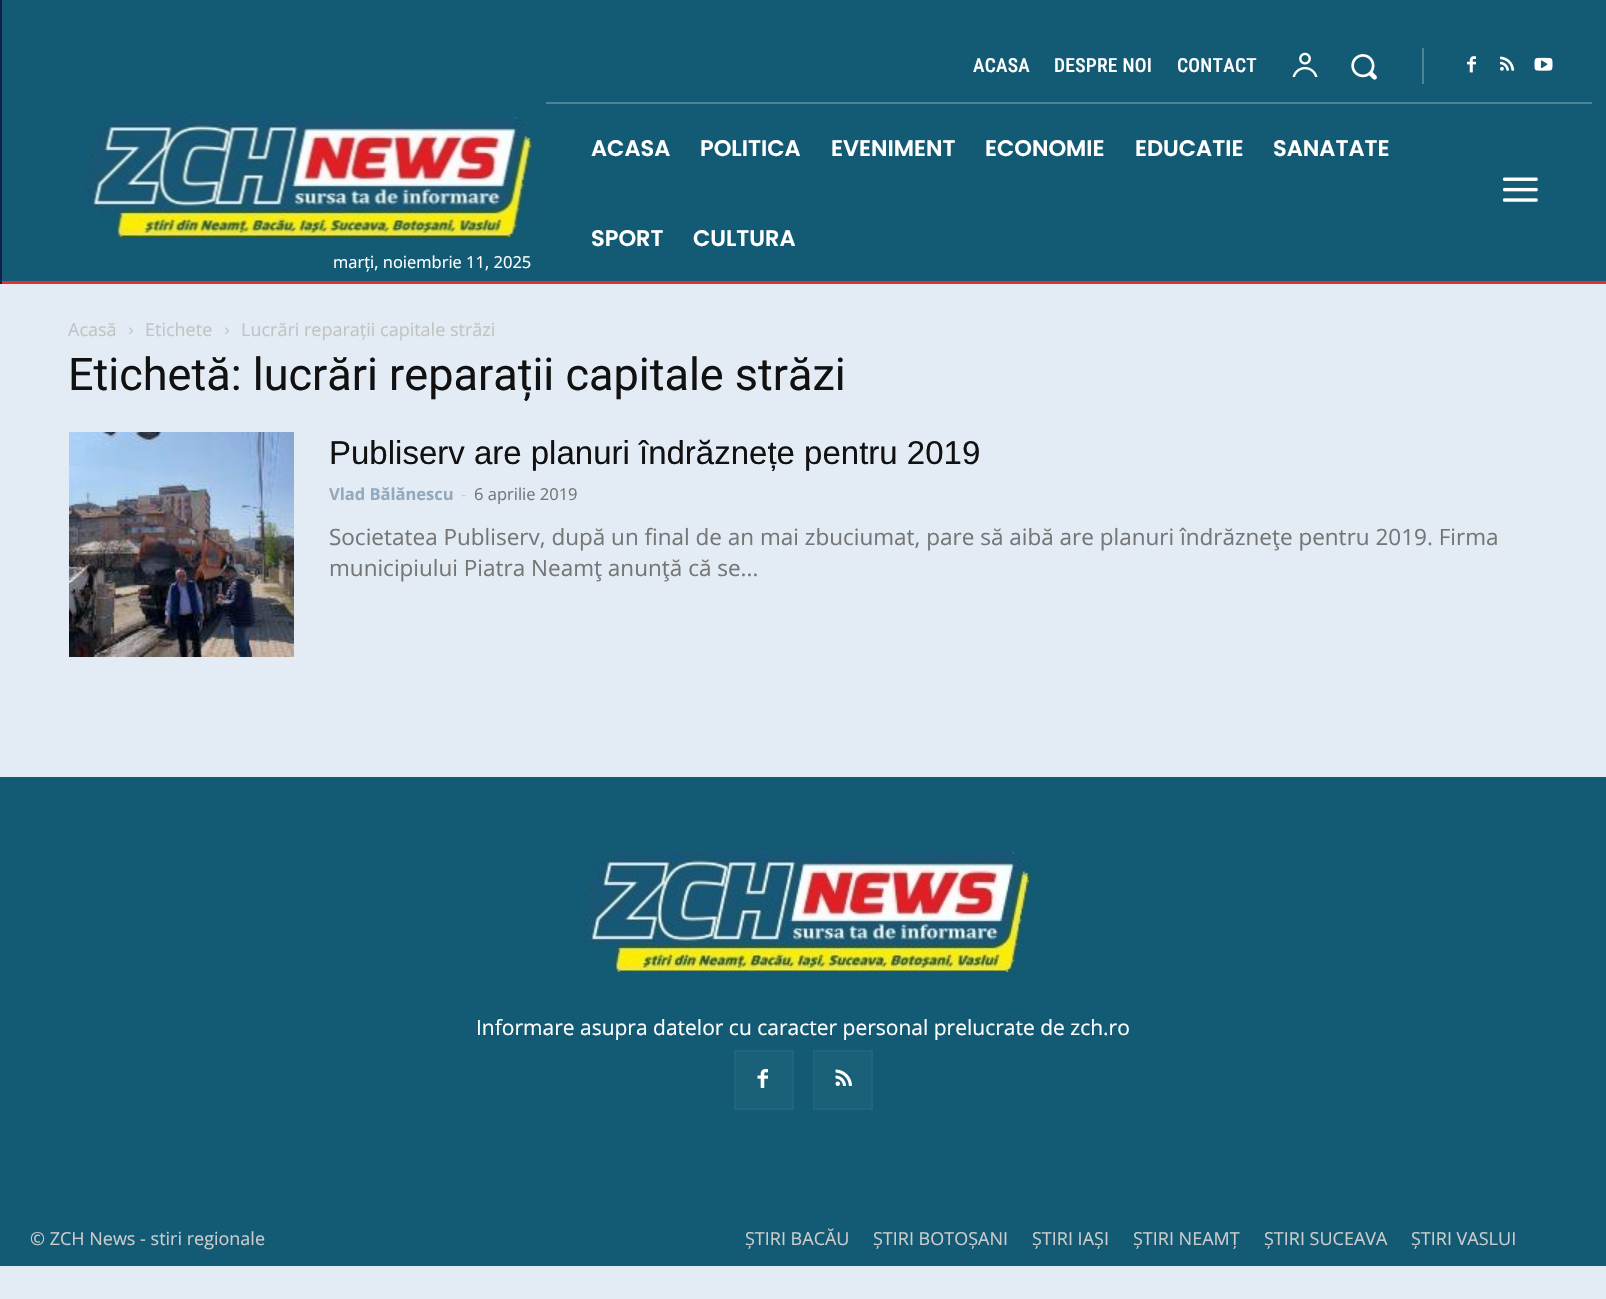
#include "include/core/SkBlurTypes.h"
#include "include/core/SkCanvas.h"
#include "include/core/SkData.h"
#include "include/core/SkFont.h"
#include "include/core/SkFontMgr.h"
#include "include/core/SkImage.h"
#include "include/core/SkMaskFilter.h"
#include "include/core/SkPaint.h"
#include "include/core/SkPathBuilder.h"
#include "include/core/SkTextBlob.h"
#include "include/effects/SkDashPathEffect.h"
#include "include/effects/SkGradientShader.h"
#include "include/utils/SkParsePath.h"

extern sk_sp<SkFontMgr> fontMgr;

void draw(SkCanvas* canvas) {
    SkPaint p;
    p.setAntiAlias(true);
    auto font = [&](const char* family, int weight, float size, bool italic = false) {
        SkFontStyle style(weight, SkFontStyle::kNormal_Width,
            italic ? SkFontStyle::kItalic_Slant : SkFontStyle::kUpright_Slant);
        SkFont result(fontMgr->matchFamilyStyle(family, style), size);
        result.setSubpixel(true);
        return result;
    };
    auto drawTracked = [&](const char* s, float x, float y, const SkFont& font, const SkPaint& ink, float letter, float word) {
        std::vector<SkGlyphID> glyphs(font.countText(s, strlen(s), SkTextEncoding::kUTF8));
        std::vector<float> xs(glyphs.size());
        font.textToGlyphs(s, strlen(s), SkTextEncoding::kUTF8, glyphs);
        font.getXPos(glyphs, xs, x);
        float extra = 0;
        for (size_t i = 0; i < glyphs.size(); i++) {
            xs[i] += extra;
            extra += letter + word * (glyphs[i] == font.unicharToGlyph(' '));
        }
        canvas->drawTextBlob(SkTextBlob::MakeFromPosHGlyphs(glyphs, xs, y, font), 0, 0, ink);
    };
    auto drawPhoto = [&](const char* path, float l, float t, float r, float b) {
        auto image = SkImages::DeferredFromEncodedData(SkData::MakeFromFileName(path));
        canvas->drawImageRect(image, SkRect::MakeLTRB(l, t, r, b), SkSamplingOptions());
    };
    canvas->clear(0xFFE3ECF4);
    {
        const struct { float l, t, r, b; SkColor color; } items[] = {
            {0, 0, 2, 284, 0xFF131F49},
            {2, 0, 1606, 281, 0xFF135B74},
            {2, 281, 1606, 284, 0xFFE52E2E},
        };
        for (auto [l, t, r, b, color] : items) {
            p.setColor(color);
            canvas->drawRect(SkRect::MakeLTRB(l, t, r, b), p);
        }
    }
    auto font1 = font("Roboto Condensed", 500, 19.5f);
    p.setColor(0xFFFFFFFF);
    {
        const struct { const char* s; float x, y; } items[] = {
            {"ACASA", 973, 72},
            {"DESPRE NOI", 1054, 72},
            {"CONTACT", 1177, 72},
        };
        for (auto [s, x, y] : items) {
            drawTracked(s, x, y, font1, p, 0.25f, 0);
        }
    }
    drawPhoto("media/1.png", 1292, 52, 1318, 77);
    drawPhoto("media/2.png", 1351, 54, 1377, 80);
    p.setColor(0xFF4E8497);
    canvas->drawRect(SkRect::MakeLTRB(1422, 48, 1424, 84), p);
    drawPhoto("media/3.png", 1467, 56, 1476, 73);
    drawPhoto("media/4.png", 1500, 56, 1515, 71);
    drawPhoto("media/5.png", 1534, 57, 1553, 71);
    canvas->drawRect(SkRect::MakeLTRB(546, 102, 1592, 104), p);
    auto font2 = font("Poppins", 600, 22.5f);
    p.setColor(0xFFFFFFFF);
    {
        const struct { const char* s; float x, y; } items[] = {
            {"ACASA", 591, 156},
            {"POLITICA", 700, 156},
            {"EVENIMENT", 831, 156},
            {"ECONOMIE", 985, 156},
            {"EDUCATIE", 1135, 156},
            {"SANATATE", 1273, 156},
            {"SPORT", 591, 246},
            {"CULTURA", 693, 246},
        };
        for (auto [s, x, y] : items) {
            canvas->drawString(s, x, y, font2, p);
        }
    }
    drawPhoto("media/6.png", 1503, 177, 1538, 202);
    drawPhoto("media/7.png", 82, 117, 532, 237);
    auto font3 = font("Open Sans", 400, 16.5f);
    canvas->drawString("marți, noiembrie 11, 2025", 333, 268, font3, p);
    auto font4 = font("Open Sans", 400, 18);
    p.setColor(0xFFC3C3C3);
    canvas->drawString("Acasă", 68, 336, font4, p);
    drawPhoto("media/8.png", 129, 327, 133, 335);
    canvas->drawString("Etichete", 145, 336, font4, p);
    drawPhoto("media/8.png", 225, 327, 229, 335);
    canvas->drawString("Lucrări reparații capitale străzi", 241, 336, font4, p);
    auto font5 = font("Roboto", 400, 45);
    p.setColor(0xFF111111);
    canvas->drawString("Etichetă: lucrări reparații capitale străzi", 68, 390, font5, p);
    drawPhoto("media/9.png", 69, 432, 294, 657);
    auto font6 = font("Liberation Sans", 400, 33);
    canvas->drawString("Publiserv are planuri îndrăznețe pentru 2019", 329, 464, font6, p);
    auto font7 = font("Open Sans", 700, 16.5f);
    p.setColor(0xFF93A9BF);
    canvas->drawString("Vlad Bălănescu", 329, 500, font7, p);
    p.setColor(0xFFCCCCCC);
    canvas->drawString("-", 461, 500, font3, p);
    p.setColor(0xFF767676);
    canvas->drawString("6 aprilie 2019", 474, 500, font3, p);
    auto font8 = font("Open Sans", 400, 22.5f);
    canvas->drawString("Societatea Publiserv, după un final de an mai zbuciumat, pare să aibă are planuri îndrăzneţe pentru 2019. Firma", 329, 545, font8, p);
    canvas->drawString("municipiului Piatra Neamţ anunţă că se...", 329, 576, font8, p);
    p.setColor(0xFF135B74);
    canvas->drawRect(SkRect::MakeLTRB(0, 777, 1606, 1266), p);
    drawPhoto("media/10.png", 579, 852, 1029, 972);
    auto font9 = font("Open Sans", 400, 21);
    p.setColor(0xFFFFFFFF);
    canvas->drawString("Informare asupra datelor cu caracter personal prelucrate de zch.ro", 476, 1035, font9, p);
    p.setColor(0xFF1A6078);
    canvas->drawRect(SkRect::MakeLTRB(736, 1052, 792, 1108), p);
    drawPhoto("media/11.png", 757, 1069, 768, 1088);
    p.setStyle(SkPaint::kStroke_Style);
    p.setStrokeWidth(2);
    p.setColor(0xFF21657C);
    canvas->drawRect(SkRect::MakeLTRB(735, 1051, 793, 1109), p);
    p.setStyle(SkPaint::kFill_Style);
    p.setColor(0xFF1A6078);
    canvas->drawRect(SkRect::MakeLTRB(815, 1052, 871, 1108), p);
    drawPhoto("media/12.png", 835, 1069, 852, 1086);
    p.setStyle(SkPaint::kStroke_Style);
    p.setColor(0xFF21657C);
    canvas->drawRect(SkRect::MakeLTRB(814, 1051, 872, 1109), p);
    p.setStyle(SkPaint::kFill_Style);
    p.setColor(0xFFCCCCCC);
    {
        const struct { const char* s; float x, y; } items[] = {
            {"© ZCH News - stiri regionale", 30, 1245},
            {"ȘTIRI BACĂU", 745, 1245},
            {"ȘTIRI BOTOȘANI", 873, 1245},
            {"ȘTIRI IAȘI", 1032, 1245},
            {"ȘTIRI NEAMȚ", 1133, 1245},
            {"ȘTIRI SUCEAVA", 1264, 1245},
            {"ȘTIRI VASLUI", 1411, 1245},
        };
        for (auto [s, x, y] : items) {
            canvas->drawString(s, x, y, font4, p);
        }
    }
}
